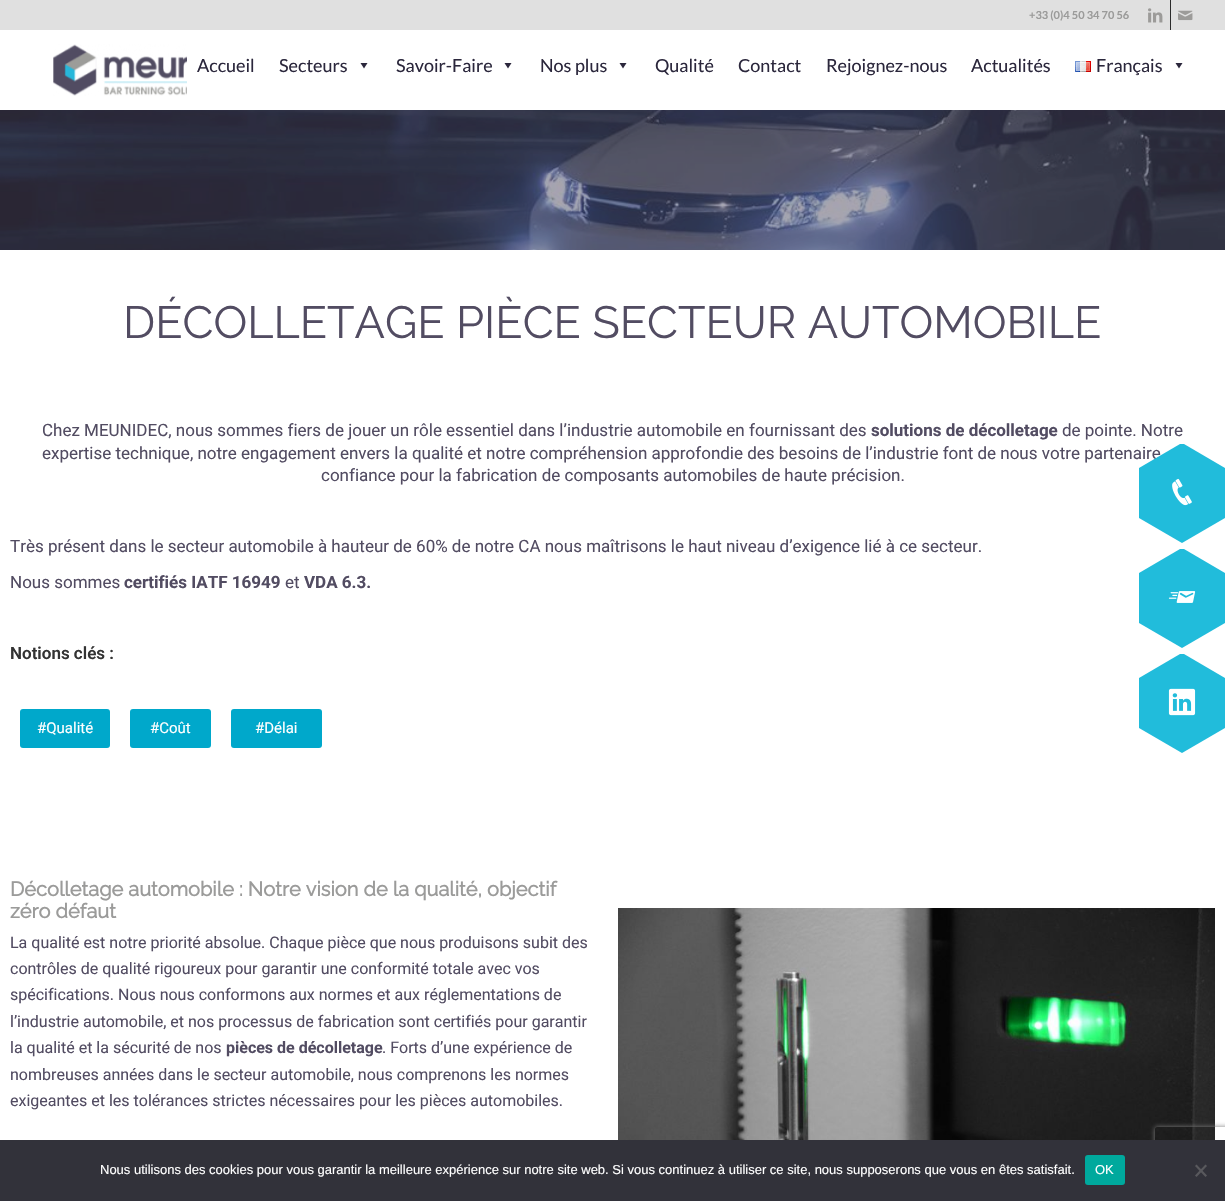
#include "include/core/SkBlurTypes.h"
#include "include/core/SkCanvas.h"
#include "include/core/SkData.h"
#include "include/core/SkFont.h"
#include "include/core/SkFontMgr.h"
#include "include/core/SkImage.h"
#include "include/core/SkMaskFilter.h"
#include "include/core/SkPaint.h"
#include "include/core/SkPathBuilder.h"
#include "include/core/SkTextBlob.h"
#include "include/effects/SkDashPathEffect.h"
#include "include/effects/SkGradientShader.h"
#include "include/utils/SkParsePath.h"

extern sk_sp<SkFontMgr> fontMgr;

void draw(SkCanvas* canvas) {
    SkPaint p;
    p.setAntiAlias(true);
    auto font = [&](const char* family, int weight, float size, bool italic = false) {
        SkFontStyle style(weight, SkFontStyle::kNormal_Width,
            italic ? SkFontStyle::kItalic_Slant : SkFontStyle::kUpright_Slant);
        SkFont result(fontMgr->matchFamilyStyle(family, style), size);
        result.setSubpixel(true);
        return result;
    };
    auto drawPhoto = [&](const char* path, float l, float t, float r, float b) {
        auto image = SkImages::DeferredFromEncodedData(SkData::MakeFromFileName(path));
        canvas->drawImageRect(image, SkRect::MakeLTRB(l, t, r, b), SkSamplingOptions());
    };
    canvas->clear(0xFFFFFFFF);
    p.setColor(0xFFE0E0E0);
    canvas->drawRect(SkRect::MakeLTRB(0, 0, 1225, 30), p);
    auto font1 = font("Lato", 700, 11);
    p.setColor(0xFF9B9B9A);
    canvas->drawString("+33 (0)4 50 34 70 56", 1029, 19, font1, p);
    p.setColor(0xFF2B2B2B);
    canvas->drawRect(SkRect::MakeLTRB(1170, 0, 1171, 30), p);
    drawPhoto("media/1.png", 1148, 8, 1163, 23);
    drawPhoto("media/2.png", 1178, 10, 1193, 21);
    drawPhoto("media/3.png", 53, 44, 187, 96);
    auto font2 = font("Lato", 400, 18);
    p.setColor(0xFF2B273C);
    canvas->drawString("Accueil", 197, 72, font2, p);
    canvas->drawString("Secteurs", 279, 72, font2, p);
    canvas->drawPath(SkPathBuilder().moveTo(367.5f, 63).lineTo(364, 68.5f).lineTo(360.5f, 63).close().detach(), p);
    canvas->drawString("Savoir-Faire", 396, 72, font2, p);
    canvas->drawPath(SkPathBuilder().moveTo(511.5f, 63).lineTo(508, 68.5f).lineTo(504.5f, 63).close().detach(), p);
    canvas->drawString("Nos plus", 540, 72, font2, p);
    canvas->drawPath(SkPathBuilder().moveTo(626.5f, 63).lineTo(623, 68.5f).lineTo(619.5f, 63).close().detach(), p);
    {
        const struct { const char* s; float x, y; } items[] = {
            {"Qualité", 655, 72},
            {"Contact", 738, 72},
            {"Rejoignez-nous", 826, 72},
            {"Actualités", 971, 72},
        };
        for (auto [s, x, y] : items) {
            canvas->drawString(s, x, y, font2, p);
        }
    }
    drawPhoto("media/4.png", 1075, 61, 1091, 72);
    canvas->drawString("Français", 1096, 72, font2, p);
    canvas->drawPath(SkPathBuilder().moveTo(1182.5f, 63).lineTo(1179, 68.5f).lineTo(1175.5f, 63).close().detach(), p);
    drawPhoto("media/5.png", 0, 110, 1225, 250);
    auto font3 = font("Raleway", 100, 45);
    p.setColor(0xFF524C62);
    canvas->drawString("DÉCOLLETAGE PIÈCE SECTEUR AUTOMOBILE", 123, 338, font3, p);
    auto font4 = font("Roboto", 400, 17);
    canvas->drawString("Chez MEUNIDEC, nous sommes fiers de jouer un rôle essentiel dans l’industrie automobile en fournissant des", 42, 436, font4, p);
    auto font5 = font("Roboto", 700, 17);
    canvas->drawString("solutions de décolletage", 871, 436, font5, p);
    {
        const struct { const char* s; float x, y; } items[] = {
            {"de pointe. Notre", 1062, 436},
            {"expertise technique, notre engagement envers la qualité et notre compréhension approfondie des besoins de l’industrie font de nous votre partenaire", 42, 459},
            {"confiance pour la fabrication de composants automobiles de haute précision.", 321, 481},
            {"Très présent dans le secteur automobile à hauteur de 60% de notre CA nous maîtrisons le haut niveau d’exigence lié à ce secteur.", 10, 552},
            {"Nous sommes", 10, 588},
        };
        for (auto [s, x, y] : items) {
            canvas->drawString(s, x, y, font4, p);
        }
    }
    canvas->drawString("certifiés IATF 16949", 124, 588, font5, p);
    canvas->drawString("et", 285, 588, font4, p);
    canvas->drawString("VDA 6.3.", 304, 588, font5, p);
    auto font6 = font("Roboto", 600, 17);
    p.setColor(0xFF333333);
    canvas->drawString("Notions clés :", 10, 659, font6, p);
    p.setColor(0xFF00A8CB);
    canvas->drawRoundRect(SkRect::MakeLTRB(20, 709, 110, 748), 3, 3, p);
    auto font7 = font("Roboto", 400, 15);
    p.setColor(0xFFFFFFFF);
    canvas->drawString("#Qualité", 37, 733, font7, p);
    p.setColor(0xFF00A8CB);
    canvas->drawRoundRect(SkRect::MakeLTRB(130, 709, 211, 748), 3, 3, p);
    p.setColor(0xFFFFFFFF);
    canvas->drawString("#Coût", 150, 733, font7, p);
    p.setColor(0xFF00A8CB);
    canvas->drawRoundRect(SkRect::MakeLTRB(231, 709, 322, 748), 3, 3, p);
    p.setColor(0xFFFFFFFF);
    canvas->drawString("#Délai", 255, 733, font7, p);
    auto font8 = font("Raleway", 700, 20);
    p.setColor(0xFF9B9B9A);
    canvas->drawString("Décolletage automobile : Notre vision de la qualité, objectif", 10, 896, font8, p);
    canvas->drawString("zéro défaut", 10, 918, font8, p);
    auto font9 = font("Roboto", 400, 16);
    p.setColor(0xFF524C62);
    {
        const struct { const char* s; float x, y; } items[] = {
            {"La qualité est notre priorité absolue. Chaque pièce que nous produisons subit des", 10, 948},
            {"contrôles de qualité rigoureux pour garantir une conformité totale avec vos", 10, 974},
            {"spécifications. Nous nous conformons aux normes et aux réglementations de", 10, 1000},
            {"l’industrie automobile, et nos processus de fabrication sont certifiés pour garantir", 10, 1027},
            {"la qualité et la sécurité de nos", 10, 1053},
        };
        for (auto [s, x, y] : items) {
            canvas->drawString(s, x, y, font9, p);
        }
    }
    auto font10 = font("Roboto", 700, 16);
    canvas->drawString("pièces de décolletage", 226, 1053, font10, p);
    {
        const struct { const char* s; float x, y; } items[] = {
            {". Forts d’une expérience de", 382, 1053},
            {"nombreuses années dans le secteur automobile, nous comprenons les normes", 10, 1080},
            {"exigeantes et les tolérances strictes nécessaires pour les pièces automobiles.", 10, 1106},
        };
        for (auto [s, x, y] : items) {
            canvas->drawString(s, x, y, font9, p);
        }
    }
    drawPhoto("media/6.png", 618, 908, 1215, 1140);
    p.setColor(0xFF21BCDB);
    canvas->drawPath(SkPathBuilder().moveTo(1139, 468).lineTo(1139, 518).lineTo(1182, 543).lineTo(1225, 518).lineTo(1225, 468).lineTo(1184, 444).lineTo(1180, 444).close().detach(), p);
    drawPhoto("media/7.png", 1172, 478, 1192, 506);
    canvas->drawPath(SkPathBuilder().moveTo(1139, 573).lineTo(1139, 623).lineTo(1182, 648).lineTo(1225, 623).lineTo(1225, 573).lineTo(1184, 549).lineTo(1180, 549).close().detach(), p);
    drawPhoto("media/8.png", 1168, 591, 1196, 603);
    canvas->drawPath(SkPathBuilder().moveTo(1139, 678).lineTo(1139, 728).lineTo(1182, 753).lineTo(1225, 728).lineTo(1225, 678).lineTo(1184, 654).lineTo(1180, 654).close().detach(), p);
    drawPhoto("media/9.png", 1168, 688, 1196, 716);
    canvas->save();
    canvas->clipPath(SkPathBuilder(SkPathFillType::kEvenOdd).moveTo(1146, 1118).lineTo(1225, 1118).lineTo(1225, 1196).lineTo(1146, 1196).close().moveTo(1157, 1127).lineTo(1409, 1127).cubicTo(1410, 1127, 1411, 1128, 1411, 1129).lineTo(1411, 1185).cubicTo(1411, 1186, 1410, 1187, 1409, 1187).lineTo(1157, 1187).cubicTo(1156, 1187, 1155, 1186, 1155, 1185).lineTo(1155, 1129).cubicTo(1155, 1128, 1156, 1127, 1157, 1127).close().detach(), true);
    p.setColor(0xFF808080);
    p.setMaskFilter(SkMaskFilter::MakeBlur(kNormal_SkBlurStyle, 2.5f));
    canvas->drawRoundRect(SkRect::MakeLTRB(1155, 1127, 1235, 1187), 2, 2, p);
    p.setMaskFilter(nullptr);
    canvas->restore();
    p.setColor(0xFF32323A);
    canvas->drawRect(SkRect::MakeLTRB(0, 1140, 1225, 1201), p);
    auto font11 = font("Liberation Sans", 400, 13);
    p.setColor(0xFFFFFFFF);
    canvas->drawString("Nous utilisons des cookies pour vous garantir la meilleure expérience sur notre site web. Si vous continuez à utiliser ce site, nous supposerons que vous en êtes satisfait.", 100, 1174, font11, p);
    p.setColor(0xFF00A99D);
    canvas->drawRoundRect(SkRect::MakeLTRB(1085, 1155, 1125, 1185), 3, 3, p);
    p.setColor(0xFFFFFFFF);
    canvas->drawString("OK", 1095, 1174, font11, p);
    p.setColor(0xFF59595D);
    canvas->drawPath(SkPathBuilder().moveTo(1205.5f, 1164.5f).lineTo(1207, 1166).lineTo(1196.5f, 1177).lineTo(1195, 1175.5f).close().detach(), p);
    canvas->drawPath(SkPathBuilder().moveTo(1195, 1166).lineTo(1196.5f, 1164.5f).lineTo(1207, 1175.5f).lineTo(1205.5f, 1177).close().detach(), p);
}
